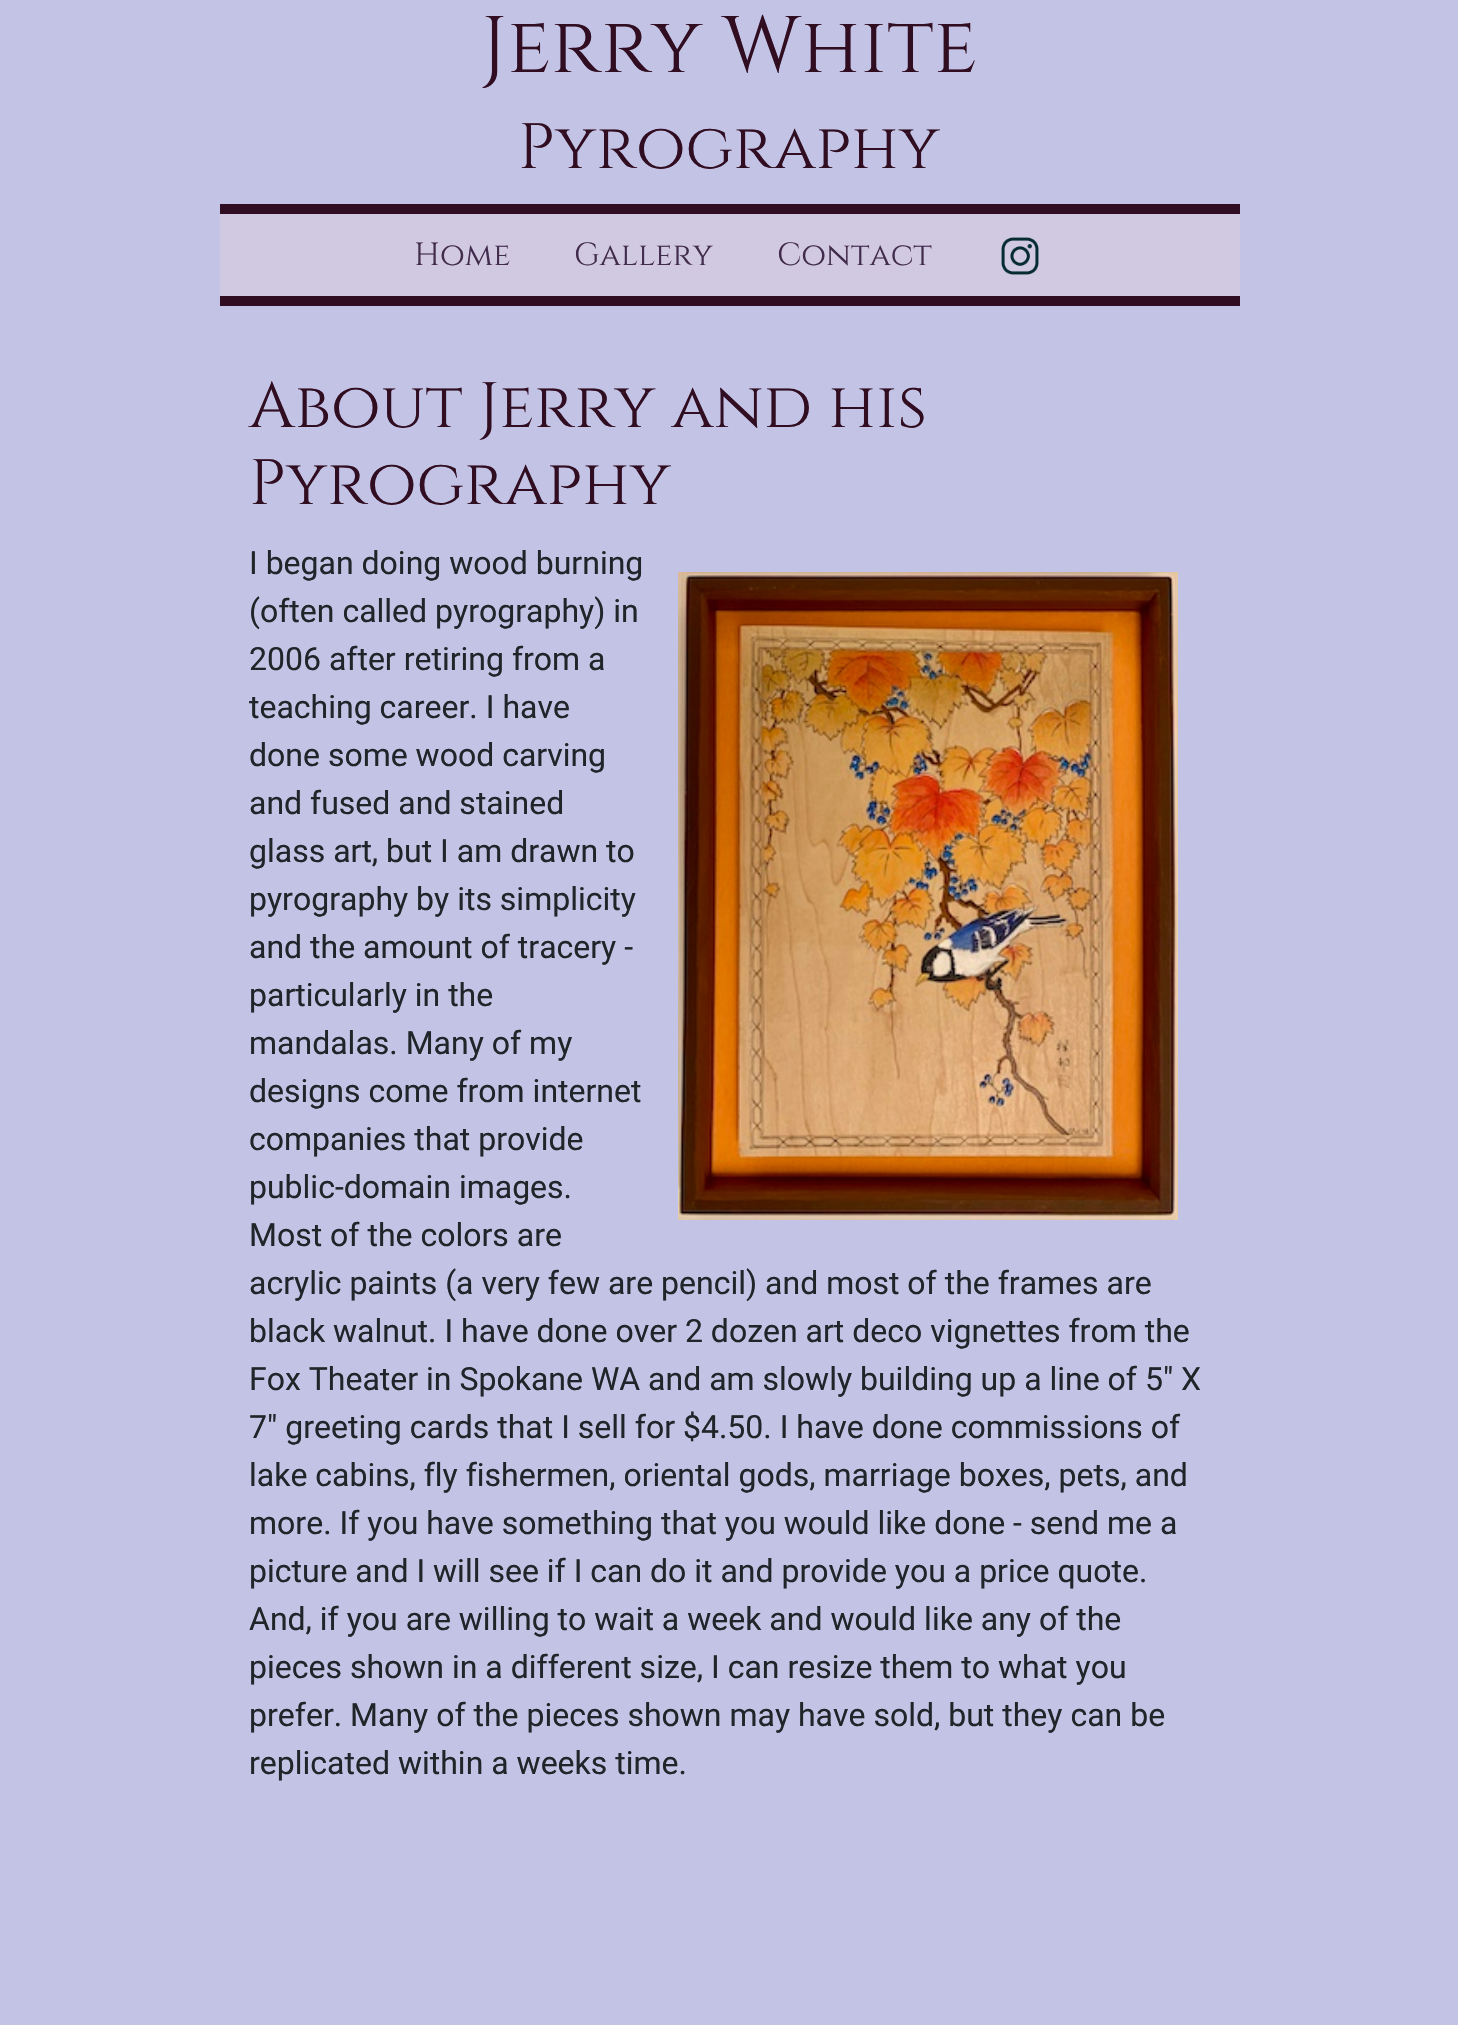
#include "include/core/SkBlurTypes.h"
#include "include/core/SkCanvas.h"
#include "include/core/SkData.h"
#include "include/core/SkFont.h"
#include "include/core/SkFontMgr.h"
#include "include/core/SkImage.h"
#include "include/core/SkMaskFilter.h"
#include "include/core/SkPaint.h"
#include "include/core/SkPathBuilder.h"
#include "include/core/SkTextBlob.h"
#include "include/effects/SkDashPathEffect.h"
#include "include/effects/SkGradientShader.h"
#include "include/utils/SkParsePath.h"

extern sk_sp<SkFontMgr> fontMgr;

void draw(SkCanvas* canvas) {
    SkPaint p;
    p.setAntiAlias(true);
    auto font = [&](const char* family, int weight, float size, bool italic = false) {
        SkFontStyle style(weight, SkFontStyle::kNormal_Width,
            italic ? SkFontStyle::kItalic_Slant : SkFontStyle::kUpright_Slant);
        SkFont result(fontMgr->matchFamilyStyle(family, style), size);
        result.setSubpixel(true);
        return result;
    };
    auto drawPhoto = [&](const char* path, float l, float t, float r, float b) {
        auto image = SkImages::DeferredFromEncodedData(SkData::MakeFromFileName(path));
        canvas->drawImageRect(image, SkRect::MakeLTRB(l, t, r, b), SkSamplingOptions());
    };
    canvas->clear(0xFFC3C3E6);
    auto font1 = font("Cinzel", 400, 80);
    p.setColor(0xFF300D20);
    canvas->drawString("Jerry White", 481, 72, font1, p);
    auto font2 = font("Cinzel", 400, 64);
    canvas->drawString("Pyrography", 518, 168, font2, p);
    {
        const struct { float l, t, r, b; SkColor color; } items[] = {
            {220, 214, 1240, 296, 0xFFD1C8E1},
            {220, 204, 1240, 214, 0xFF300D20},
            {220, 296, 1240, 306, 0xFF300D20},
        };
        for (auto [l, t, r, b, color] : items) {
            p.setColor(color);
            canvas->drawRect(SkRect::MakeLTRB(l, t, r, b), p);
        }
    }
    auto font3 = font("Cinzel", 400, 32);
    p.setColor(0xFF422C4E);
    {
        const struct { const char* s; float x, y; } items[] = {
            {"Home", 414, 265},
            {"Gallery", 574, 265},
            {"Contact", 777, 265},
        };
        for (auto [s, x, y] : items) {
            canvas->drawString(s, x, y, font3, p);
        }
    }
    drawPhoto("media/1.png", 1001, 237, 1039, 275);
    p.setColor(0xFF300D20);
    canvas->drawString("About Jerry and his", 249, 427, font2, p);
    canvas->drawString("Pyrography", 249, 504, font2, p);
    auto font4 = font("Roboto", 400, 32);
    p.setColor(0xFF212529);
    {
        const struct { const char* s; float x, y; } items[] = {
            {"I began doing wood burning", 249, 574},
            {"(often called pyrography) in", 249, 622},
            {"2006 after retiring from a", 249, 670},
            {"teaching career. I have", 249, 718},
            {"done some wood carving", 249, 766},
            {"and fused and stained", 249, 814},
            {"glass art, but I am drawn to", 249, 862},
            {"pyrography by its simplicity", 249, 910},
            {"and the amount of tracery -", 249, 958},
            {"particularly in the", 249, 1006},
            {"mandalas. Many of my", 249, 1054},
            {"designs come from internet", 249, 1102},
            {"companies that provide", 249, 1150},
            {"public-domain images.", 249, 1198},
            {"Most of the colors are", 249, 1246},
            {"acrylic paints (a very few are pencil) and most of the frames are", 249, 1294},
            {"black walnut. I have done over 2 dozen art deco vignettes from the", 249, 1342},
            {"Fox Theater in Spokane WA and am slowly building up a line of 5\" X", 249, 1390},
            {"7\" greeting cards that I sell for $4.50. I have done commissions of", 249, 1438},
            {"lake cabins, fly fishermen, oriental gods, marriage boxes, pets, and", 249, 1486},
            {"more. If you have something that you would like done - send me a", 249, 1534},
            {"picture and I will see if I can do it and provide you a price quote.", 249, 1582},
            {"And, if you are willing to wait a week and would like any of the", 249, 1630},
            {"pieces shown in a different size, I can resize them to what you", 249, 1678},
            {"prefer. Many of the pieces shown may have sold, but they can be", 249, 1726},
            {"replicated within a weeks time.", 249, 1774},
        };
        for (auto [s, x, y] : items) {
            canvas->drawString(s, x, y, font4, p);
        }
    }
    drawPhoto("media/2.png", 678, 572, 1178, 1220);
}
